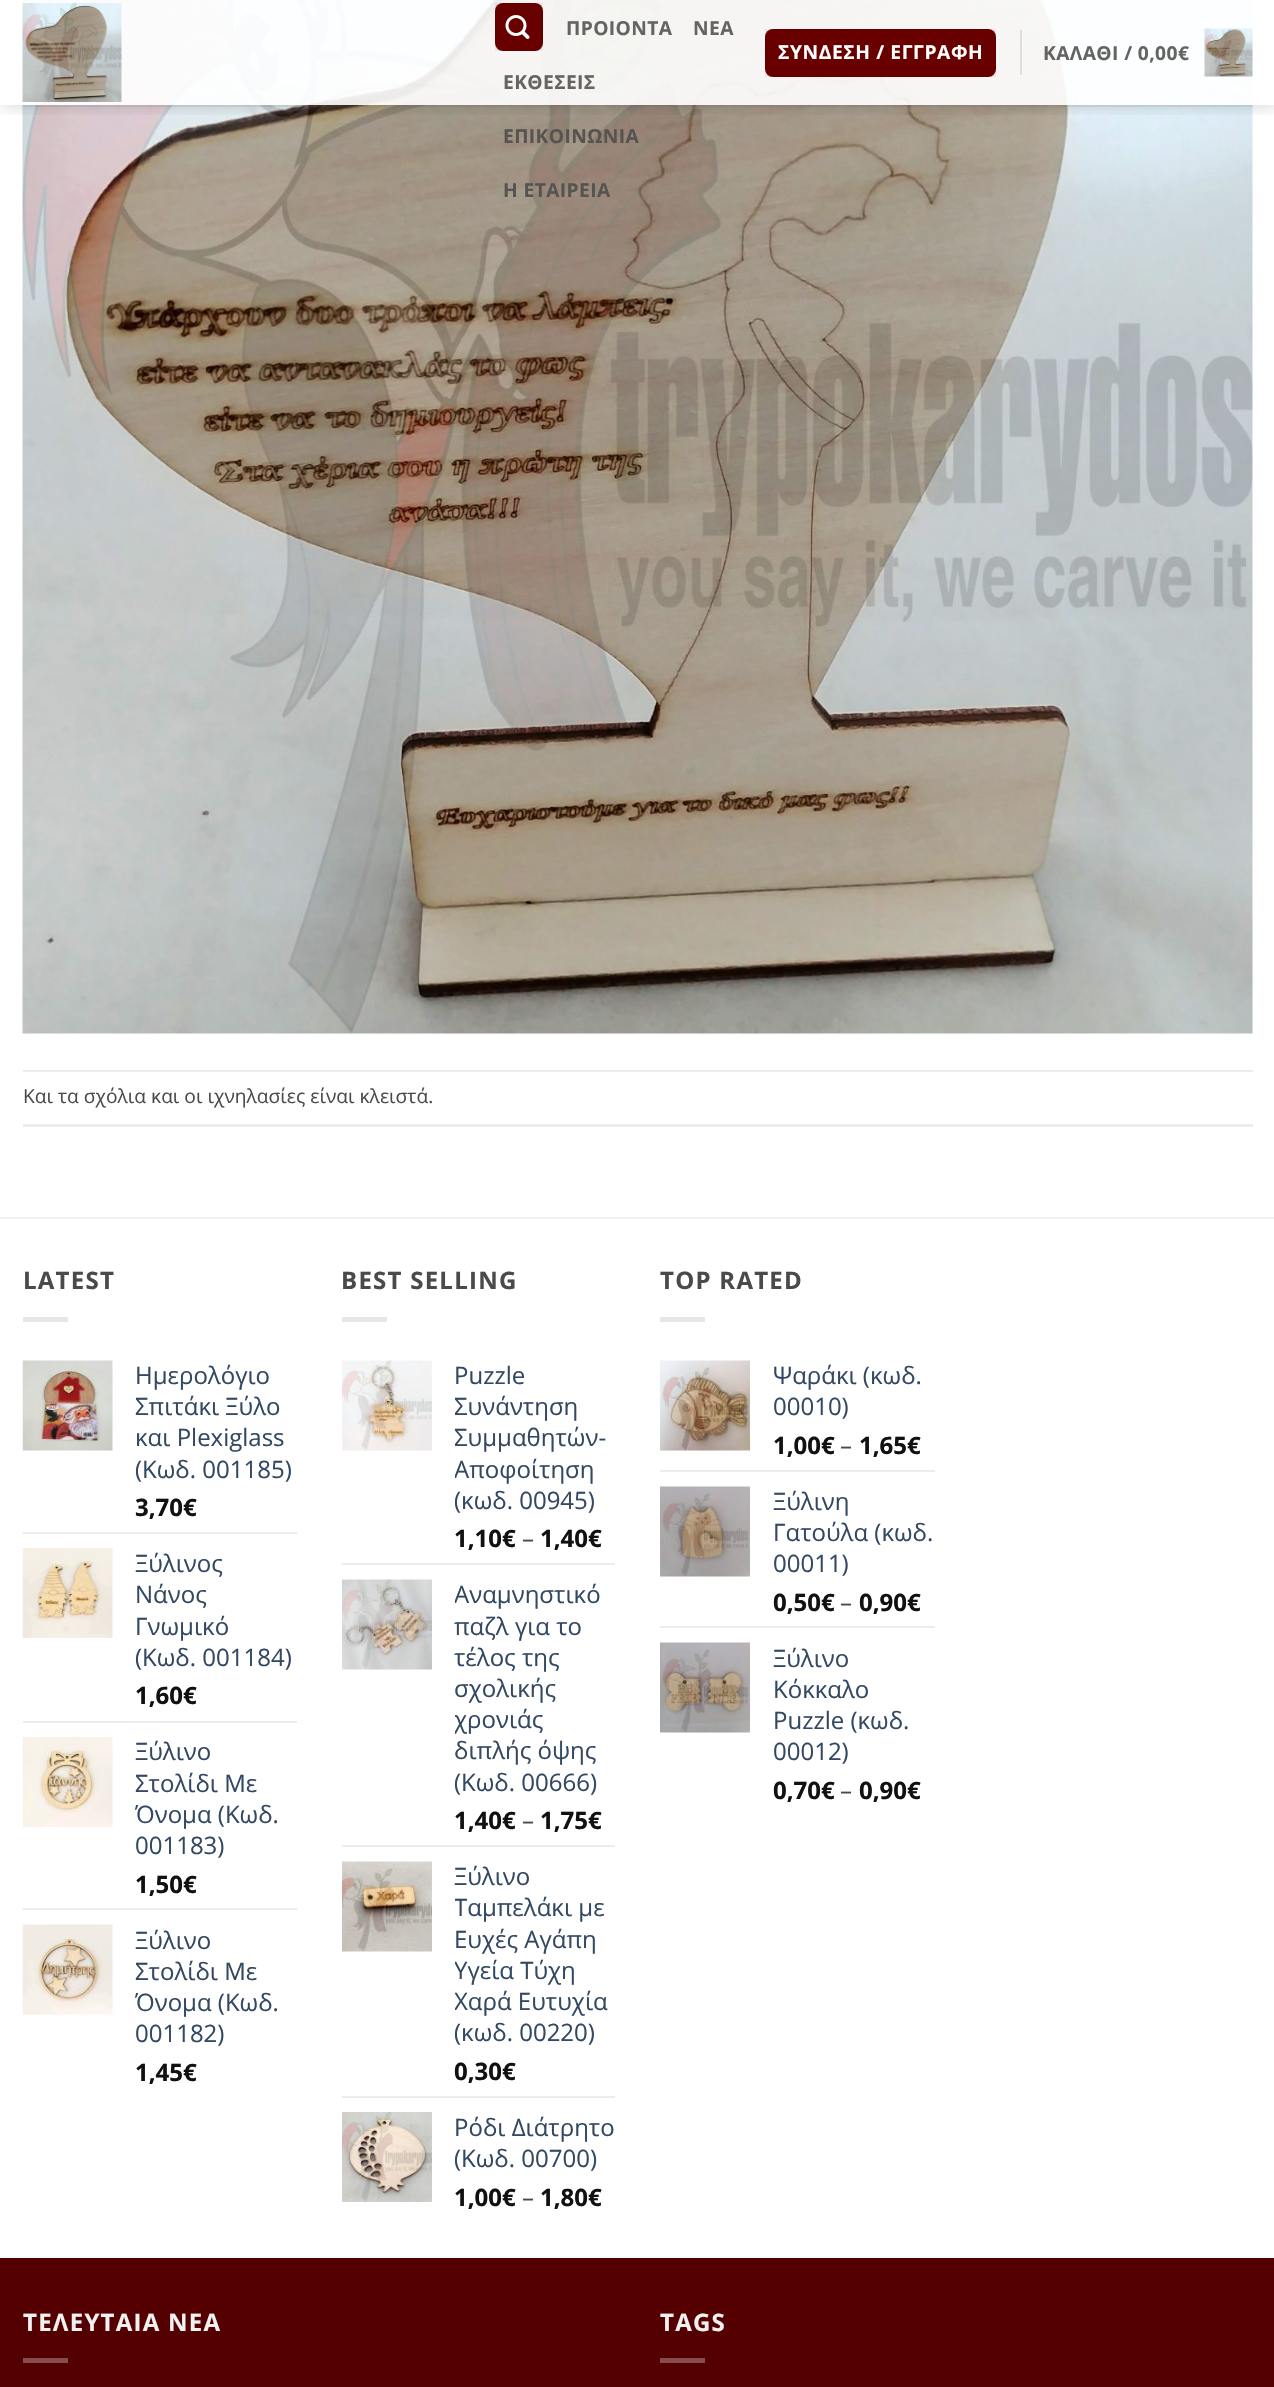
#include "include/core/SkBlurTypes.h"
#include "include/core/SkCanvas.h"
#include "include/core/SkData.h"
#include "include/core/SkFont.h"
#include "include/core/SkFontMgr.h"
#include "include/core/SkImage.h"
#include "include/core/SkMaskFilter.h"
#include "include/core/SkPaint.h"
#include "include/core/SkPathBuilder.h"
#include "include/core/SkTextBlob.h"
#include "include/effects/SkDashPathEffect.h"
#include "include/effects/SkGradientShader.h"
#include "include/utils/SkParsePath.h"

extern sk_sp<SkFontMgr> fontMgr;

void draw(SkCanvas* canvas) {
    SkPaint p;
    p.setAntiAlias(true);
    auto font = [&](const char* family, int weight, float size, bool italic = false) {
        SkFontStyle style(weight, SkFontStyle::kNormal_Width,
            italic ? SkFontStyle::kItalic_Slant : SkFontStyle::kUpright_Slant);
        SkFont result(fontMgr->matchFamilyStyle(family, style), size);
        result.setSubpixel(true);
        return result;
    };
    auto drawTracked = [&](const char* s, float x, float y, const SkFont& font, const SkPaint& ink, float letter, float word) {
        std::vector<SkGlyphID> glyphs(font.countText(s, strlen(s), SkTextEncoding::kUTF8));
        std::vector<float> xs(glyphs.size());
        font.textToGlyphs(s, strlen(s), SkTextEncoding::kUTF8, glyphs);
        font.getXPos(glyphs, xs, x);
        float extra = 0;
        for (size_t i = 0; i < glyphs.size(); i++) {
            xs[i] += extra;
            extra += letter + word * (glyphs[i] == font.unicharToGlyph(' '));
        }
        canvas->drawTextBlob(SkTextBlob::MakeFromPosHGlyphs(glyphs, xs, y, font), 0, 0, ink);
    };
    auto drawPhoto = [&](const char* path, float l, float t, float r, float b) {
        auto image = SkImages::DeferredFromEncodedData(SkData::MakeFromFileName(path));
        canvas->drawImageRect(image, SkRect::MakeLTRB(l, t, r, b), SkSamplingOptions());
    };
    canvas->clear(0xFFFFFFFF);
    drawPhoto("media/4.png", 22, 0, 1253, 1034);
    canvas->save();
    canvas->clipRect(SkRect::MakeLTRB(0, 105, 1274, 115));
    p.setColor(0x26000000);
    p.setMaskFilter(SkMaskFilter::MakeBlur(kNormal_SkBlurStyle, 7.5f));
    canvas->drawRect(SkRect::MakeLTRB(2, 2, 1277, 107), p);
    p.setMaskFilter(nullptr);
    canvas->restore();
    p.setColor(0xE6FFFFFF);
    canvas->drawRect(SkRect::MakeLTRB(22, 0, 1253, 105), p);
    drawPhoto("media/1.png", 22, 3, 122, 102);
    p.setColor(0xFF690000);
    canvas->drawRoundRect(SkRect::MakeLTRB(495, 3, 543, 51), 8, 8, p);
    p.setStyle(SkPaint::kStroke_Style);
    p.setStrokeWidth(2);
    p.setColor(0x0D000000);
    canvas->drawRect(SkRect::MakeLTRB(496, 4, 542, 50), p);
    drawPhoto("media/2.png", 505, 15, 530, 39);
    auto font1 = font("Open Sans", 700, 19.2f);
    p.setStyle(SkPaint::kFill_Style);
    p.setColor(0xFF646463);
    {
        const struct { const char* s; float x, y; } items[] = {
            {"ΠΡΟΙΟΝΤΑ", 566, 35},
            {"ΝΕΑ", 693, 35},
            {"ΕΚΘΕΣΕΙΣ", 503, 89},
        };
        for (auto [s, x, y] : items) {
            drawTracked(s, x, y, font1, p, 0.4f, 0);
        }
    }
    p.setColor(0xFF565451);
    drawTracked("ΕΠΙΚΟΙΝΩΝΙΑ", 503, 143, font1, p, 0.4f, 0);
    drawTracked("Η ΕΤΑΙΡΕΙΑ", 503, 197, font1, p, 0.4f, 0);
    p.setColor(0xFF690000);
    canvas->drawRoundRect(SkRect::MakeLTRB(765, 29, 996, 77), 8, 8, p);
    p.setStyle(SkPaint::kStroke_Style);
    p.setColor(0x0D000000);
    canvas->drawRect(SkRect::MakeLTRB(766, 30, 995, 76), p);
    p.setStyle(SkPaint::kFill_Style);
    p.setColor(0xFFFFFFFF);
    drawTracked("ΣΥΝΔΕΣΗ / ΕΓΓΡΑΦΗ", 778, 59, font1, p, 0.6f, 0);
    p.setColor(0xFFDEDDDC);
    canvas->drawRect(SkRect::MakeLTRB(1020, 30, 1022, 75), p);
    p.setColor(0xFF646463);
    drawTracked("ΚΑΛΑΘΙ / 0,00€", 1043, 60, font1, p, 0.4f, 0);
    drawPhoto("media/3.png", 1204, 28, 1253, 77);
    {
        const struct { float l, t, r, b; SkColor color; } items[] = {
            {23, 105, 1253, 107, 0x1A4A4A4A},
            {23, 1070, 1253, 1072, 0xFFECECEC},
            {23, 1124, 1253, 1127, 0xFFECECEC},
        };
        for (auto [l, t, r, b, color] : items) {
            p.setColor(color);
            canvas->drawRect(SkRect::MakeLTRB(l, t, r, b), p);
        }
    }
    auto font2 = font("Open Sans", 400, 19.2f);
    p.setColor(0xFF4A4A4A);
    canvas->drawString("Και τα σχόλια και οι ιχνηλασίες είναι κλειστά.", 23, 1103, font2, p);
    p.setColor(0xFFF2F2F2);
    canvas->drawRect(SkRect::MakeLTRB(0, 1217, 1274, 1219), p);
    auto font3 = font("Open Sans", 700, 24);
    p.setColor(0xFF4A4A4A);
    drawTracked("LATEST", 23, 1289, font3, p, 1.25f, 0);
    p.setColor(0xFFE6E6E6);
    canvas->drawRect(SkRect::MakeLTRB(23, 1317, 68, 1322), p);
    drawPhoto("media/5.png", 22, 1360, 113, 1451);
    auto font4 = font("Open Sans", 400, 24);
    p.setColor(0xFF334862);
    {
        const struct { const char* s; float x, y; } items[] = {
            {"Ημερολόγιο", 135, 1384},
            {"Σπιτάκι Ξύλο", 135, 1415},
            {"και Plexiglass", 135, 1446},
            {"(Κωδ. 001185)", 135, 1478},
        };
        for (auto [s, x, y] : items) {
            canvas->drawString(s, x, y, font4, p);
        }
    }
    p.setColor(0xFF111111);
    canvas->drawString("3,70€", 135, 1516, font3, p);
    p.setColor(0xFFECECEC);
    canvas->drawRect(SkRect::MakeLTRB(23, 1532, 297, 1534), p);
    drawPhoto("media/6.png", 22, 1548, 113, 1638);
    p.setColor(0xFF334862);
    {
        const struct { const char* s; float x, y; } items[] = {
            {"Ξύλινος", 135, 1572},
            {"Νάνος", 135, 1603},
            {"Γνωμικό", 135, 1635},
            {"(Κωδ. 001184)", 135, 1666},
        };
        for (auto [s, x, y] : items) {
            canvas->drawString(s, x, y, font4, p);
        }
    }
    p.setColor(0xFF111111);
    canvas->drawString("1,60€", 135, 1704, font3, p);
    p.setColor(0xFFECECEC);
    canvas->drawRect(SkRect::MakeLTRB(23, 1721, 297, 1723), p);
    drawPhoto("media/7.png", 22, 1737, 113, 1827);
    p.setColor(0xFF334862);
    {
        const struct { const char* s; float x, y; } items[] = {
            {"Ξύλινο", 135, 1760},
            {"Στολίδι Με", 135, 1792},
            {"Όνομα (Κωδ.", 135, 1823},
            {"001183)", 135, 1854},
        };
        for (auto [s, x, y] : items) {
            canvas->drawString(s, x, y, font4, p);
        }
    }
    p.setColor(0xFF111111);
    canvas->drawString("1,50€", 135, 1893, font3, p);
    p.setColor(0xFFECECEC);
    canvas->drawRect(SkRect::MakeLTRB(23, 1908, 297, 1910), p);
    drawPhoto("media/8.png", 22, 1924, 113, 2015);
    p.setColor(0xFF334862);
    {
        const struct { const char* s; float x, y; } items[] = {
            {"Ξύλινο", 135, 1949},
            {"Στολίδι Με", 135, 1980},
            {"Όνομα (Κωδ.", 135, 2011},
            {"001182)", 135, 2042},
        };
        for (auto [s, x, y] : items) {
            canvas->drawString(s, x, y, font4, p);
        }
    }
    p.setColor(0xFF111111);
    canvas->drawString("1,45€", 135, 2081, font3, p);
    p.setColor(0xFF4A4A4A);
    drawTracked("BEST SELLING", 341, 1289, font3, p, 1.25f, 0);
    p.setColor(0xFFE6E6E6);
    canvas->drawRect(SkRect::MakeLTRB(342, 1317, 387, 1322), p);
    drawPhoto("media/9.png", 342, 1360, 432, 1451);
    p.setColor(0xFF334862);
    canvas->drawString("Puzzle", 454, 1384, font4, p);
    canvas->save();
    canvas->clipRect(SkRect::MakeLTRB(455, 1361, 615, 1517));
    {
        const struct { const char* s; float x, y; } items[] = {
            {"Συνάντηση", 454, 1415},
            {"Συμμαθητών-", 454, 1446},
            {"Αποφοίτηση", 454, 1478},
            {"(κωδ. 00945)", 454, 1509},
        };
        for (auto [s, x, y] : items) {
            canvas->drawString(s, x, y, font4, p);
        }
    }
    canvas->restore();
    p.setColor(0xFF111111);
    canvas->drawString("1,10€", 454, 1547, font3, p);
    p.setColor(0xFF4A4A4A);
    canvas->drawString("–", 522, 1547, font4, p);
    p.setColor(0xFF111111);
    canvas->drawString("1,40€", 540, 1547, font3, p);
    p.setColor(0xFFECECEC);
    canvas->drawRect(SkRect::MakeLTRB(342, 1563, 615, 1565), p);
    drawPhoto("media/10.png", 342, 1579, 432, 1670);
    canvas->save();
    canvas->clipRect(SkRect::MakeLTRB(455, 1580, 615, 1799));
    p.setColor(0xFF334862);
    canvas->drawString("Αναμνηστικό", 454, 1603, font4, p);
    canvas->restore();
    {
        const struct { const char* s; float x, y; } items[] = {
            {"παζλ για το", 454, 1635},
            {"τέλος της", 454, 1666},
            {"σχολικής", 454, 1697},
        };
        for (auto [s, x, y] : items) {
            canvas->drawString(s, x, y, font4, p);
        }
    }
    canvas->save();
    canvas->clipRect(SkRect::MakeLTRB(455, 1580, 615, 1799));
    canvas->drawString("χρονιάς", 454, 1728, font4, p);
    canvas->restore();
    canvas->drawString("διπλής όψης", 454, 1759, font4, p);
    canvas->save();
    canvas->clipRect(SkRect::MakeLTRB(455, 1580, 615, 1799));
    canvas->drawString("(Κωδ. 00666)", 454, 1791, font4, p);
    canvas->restore();
    p.setColor(0xFF111111);
    canvas->drawString("1,40€", 454, 1829, font3, p);
    p.setColor(0xFF4A4A4A);
    canvas->drawString("–", 522, 1829, font4, p);
    p.setColor(0xFF111111);
    canvas->drawString("1,75€", 540, 1829, font3, p);
    p.setColor(0xFFECECEC);
    canvas->drawRect(SkRect::MakeLTRB(342, 1845, 615, 1847), p);
    drawPhoto("media/11.png", 342, 1861, 432, 1952);
    p.setColor(0xFF334862);
    canvas->drawString("Ξύλινο", 454, 1885, font4, p);
    canvas->save();
    canvas->clipRect(SkRect::MakeLTRB(455, 1862, 615, 2049));
    canvas->drawString("Ταμπελάκι με", 454, 1916, font4, p);
    canvas->restore();
    canvas->drawString("Ευχές Αγάπη", 454, 1948, font4, p);
    canvas->save();
    canvas->clipRect(SkRect::MakeLTRB(455, 1862, 615, 2049));
    {
        const struct { const char* s; float x, y; } items[] = {
            {"Υγεία Τύχη", 454, 1979},
            {"Χαρά Ευτυχία", 454, 2010},
            {"(κωδ. 00220)", 454, 2041},
        };
        for (auto [s, x, y] : items) {
            canvas->drawString(s, x, y, font4, p);
        }
    }
    canvas->restore();
    p.setColor(0xFF111111);
    canvas->drawString("0,30€", 454, 2080, font3, p);
    p.setColor(0xFFECECEC);
    canvas->drawRect(SkRect::MakeLTRB(342, 2096, 615, 2098), p);
    drawPhoto("media/12.png", 342, 2112, 432, 2202);
    p.setColor(0xFF334862);
    canvas->drawString("Ρόδι Διάτρητο", 454, 2136, font4, p);
    canvas->save();
    canvas->clipRect(SkRect::MakeLTRB(455, 2112, 615, 2174));
    canvas->drawString("(Κωδ. 00700)", 454, 2167, font4, p);
    canvas->restore();
    p.setColor(0xFF111111);
    canvas->drawString("1,00€", 454, 2206, font3, p);
    p.setColor(0xFF4A4A4A);
    canvas->drawString("–", 522, 2206, font4, p);
    p.setColor(0xFF111111);
    canvas->drawString("1,80€", 540, 2206, font3, p);
    p.setColor(0xFF4A4A4A);
    drawTracked("TOP RATED", 660, 1289, font3, p, 1.25f, 0);
    p.setColor(0xFFE6E6E6);
    canvas->drawRect(SkRect::MakeLTRB(660, 1317, 705, 1322), p);
    drawPhoto("media/13.png", 660, 1360, 750, 1451);
    p.setColor(0xFF334862);
    canvas->drawString("Ψαράκι (κωδ.", 773, 1384, font4, p);
    canvas->drawString("00010)", 773, 1415, font4, p);
    p.setColor(0xFF111111);
    canvas->drawString("1,00€", 773, 1454, font3, p);
    p.setColor(0xFF4A4A4A);
    canvas->drawString("–", 840, 1454, font4, p);
    p.setColor(0xFF111111);
    canvas->drawString("1,65€", 859, 1454, font3, p);
    p.setColor(0xFFECECEC);
    canvas->drawRect(SkRect::MakeLTRB(660, 1470, 935, 1472), p);
    drawPhoto("media/14.png", 660, 1486, 750, 1577);
    p.setColor(0xFF334862);
    {
        const struct { const char* s; float x, y; } items[] = {
            {"Ξύλινη", 773, 1510},
            {"Γατούλα (κωδ.", 773, 1541},
            {"00011)", 773, 1572},
        };
        for (auto [s, x, y] : items) {
            canvas->drawString(s, x, y, font4, p);
        }
    }
    p.setColor(0xFF111111);
    canvas->drawString("0,50€", 773, 1611, font3, p);
    p.setColor(0xFF4A4A4A);
    canvas->drawString("–", 840, 1611, font4, p);
    p.setColor(0xFF111111);
    canvas->drawString("0,90€", 859, 1611, font3, p);
    p.setColor(0xFFECECEC);
    canvas->drawRect(SkRect::MakeLTRB(660, 1626, 935, 1628), p);
    drawPhoto("media/15.png", 660, 1642, 750, 1733);
    p.setColor(0xFF334862);
    {
        const struct { const char* s; float x, y; } items[] = {
            {"Ξύλινο", 773, 1667},
            {"Κόκκαλο", 773, 1698},
            {"Puzzle (κωδ.", 773, 1729},
            {"00012)", 773, 1760},
        };
        for (auto [s, x, y] : items) {
            canvas->drawString(s, x, y, font4, p);
        }
    }
    p.setColor(0xFF111111);
    canvas->drawString("0,70€", 773, 1799, font3, p);
    p.setColor(0xFF4A4A4A);
    canvas->drawString("–", 840, 1799, font4, p);
    p.setColor(0xFF111111);
    canvas->drawString("0,90€", 859, 1799, font3, p);
    p.setColor(0xFF540000);
    canvas->drawRect(SkRect::MakeLTRB(0, 2260, 1274, 2387), p);
    p.setColor(0xFF500000);
    canvas->drawRect(SkRect::MakeLTRB(0, 2258, 1274, 2260), p);
    p.setColor(0xFFF1F1F1);
    drawTracked("ΤΕΛΕΥΤΑΙΑ ΝΕΑ", 23, 2331, font3, p, 1.25f, 0);
    p.setColor(0xFF874D4D);
    canvas->drawRect(SkRect::MakeLTRB(23, 2358, 68, 2363), p);
    p.setColor(0xFFF1F1F1);
    drawTracked("TAGS", 660, 2331, font3, p, 1.25f, 0);
    p.setColor(0xFF874D4D);
    canvas->drawRect(SkRect::MakeLTRB(660, 2358, 705, 2363), p);
}
